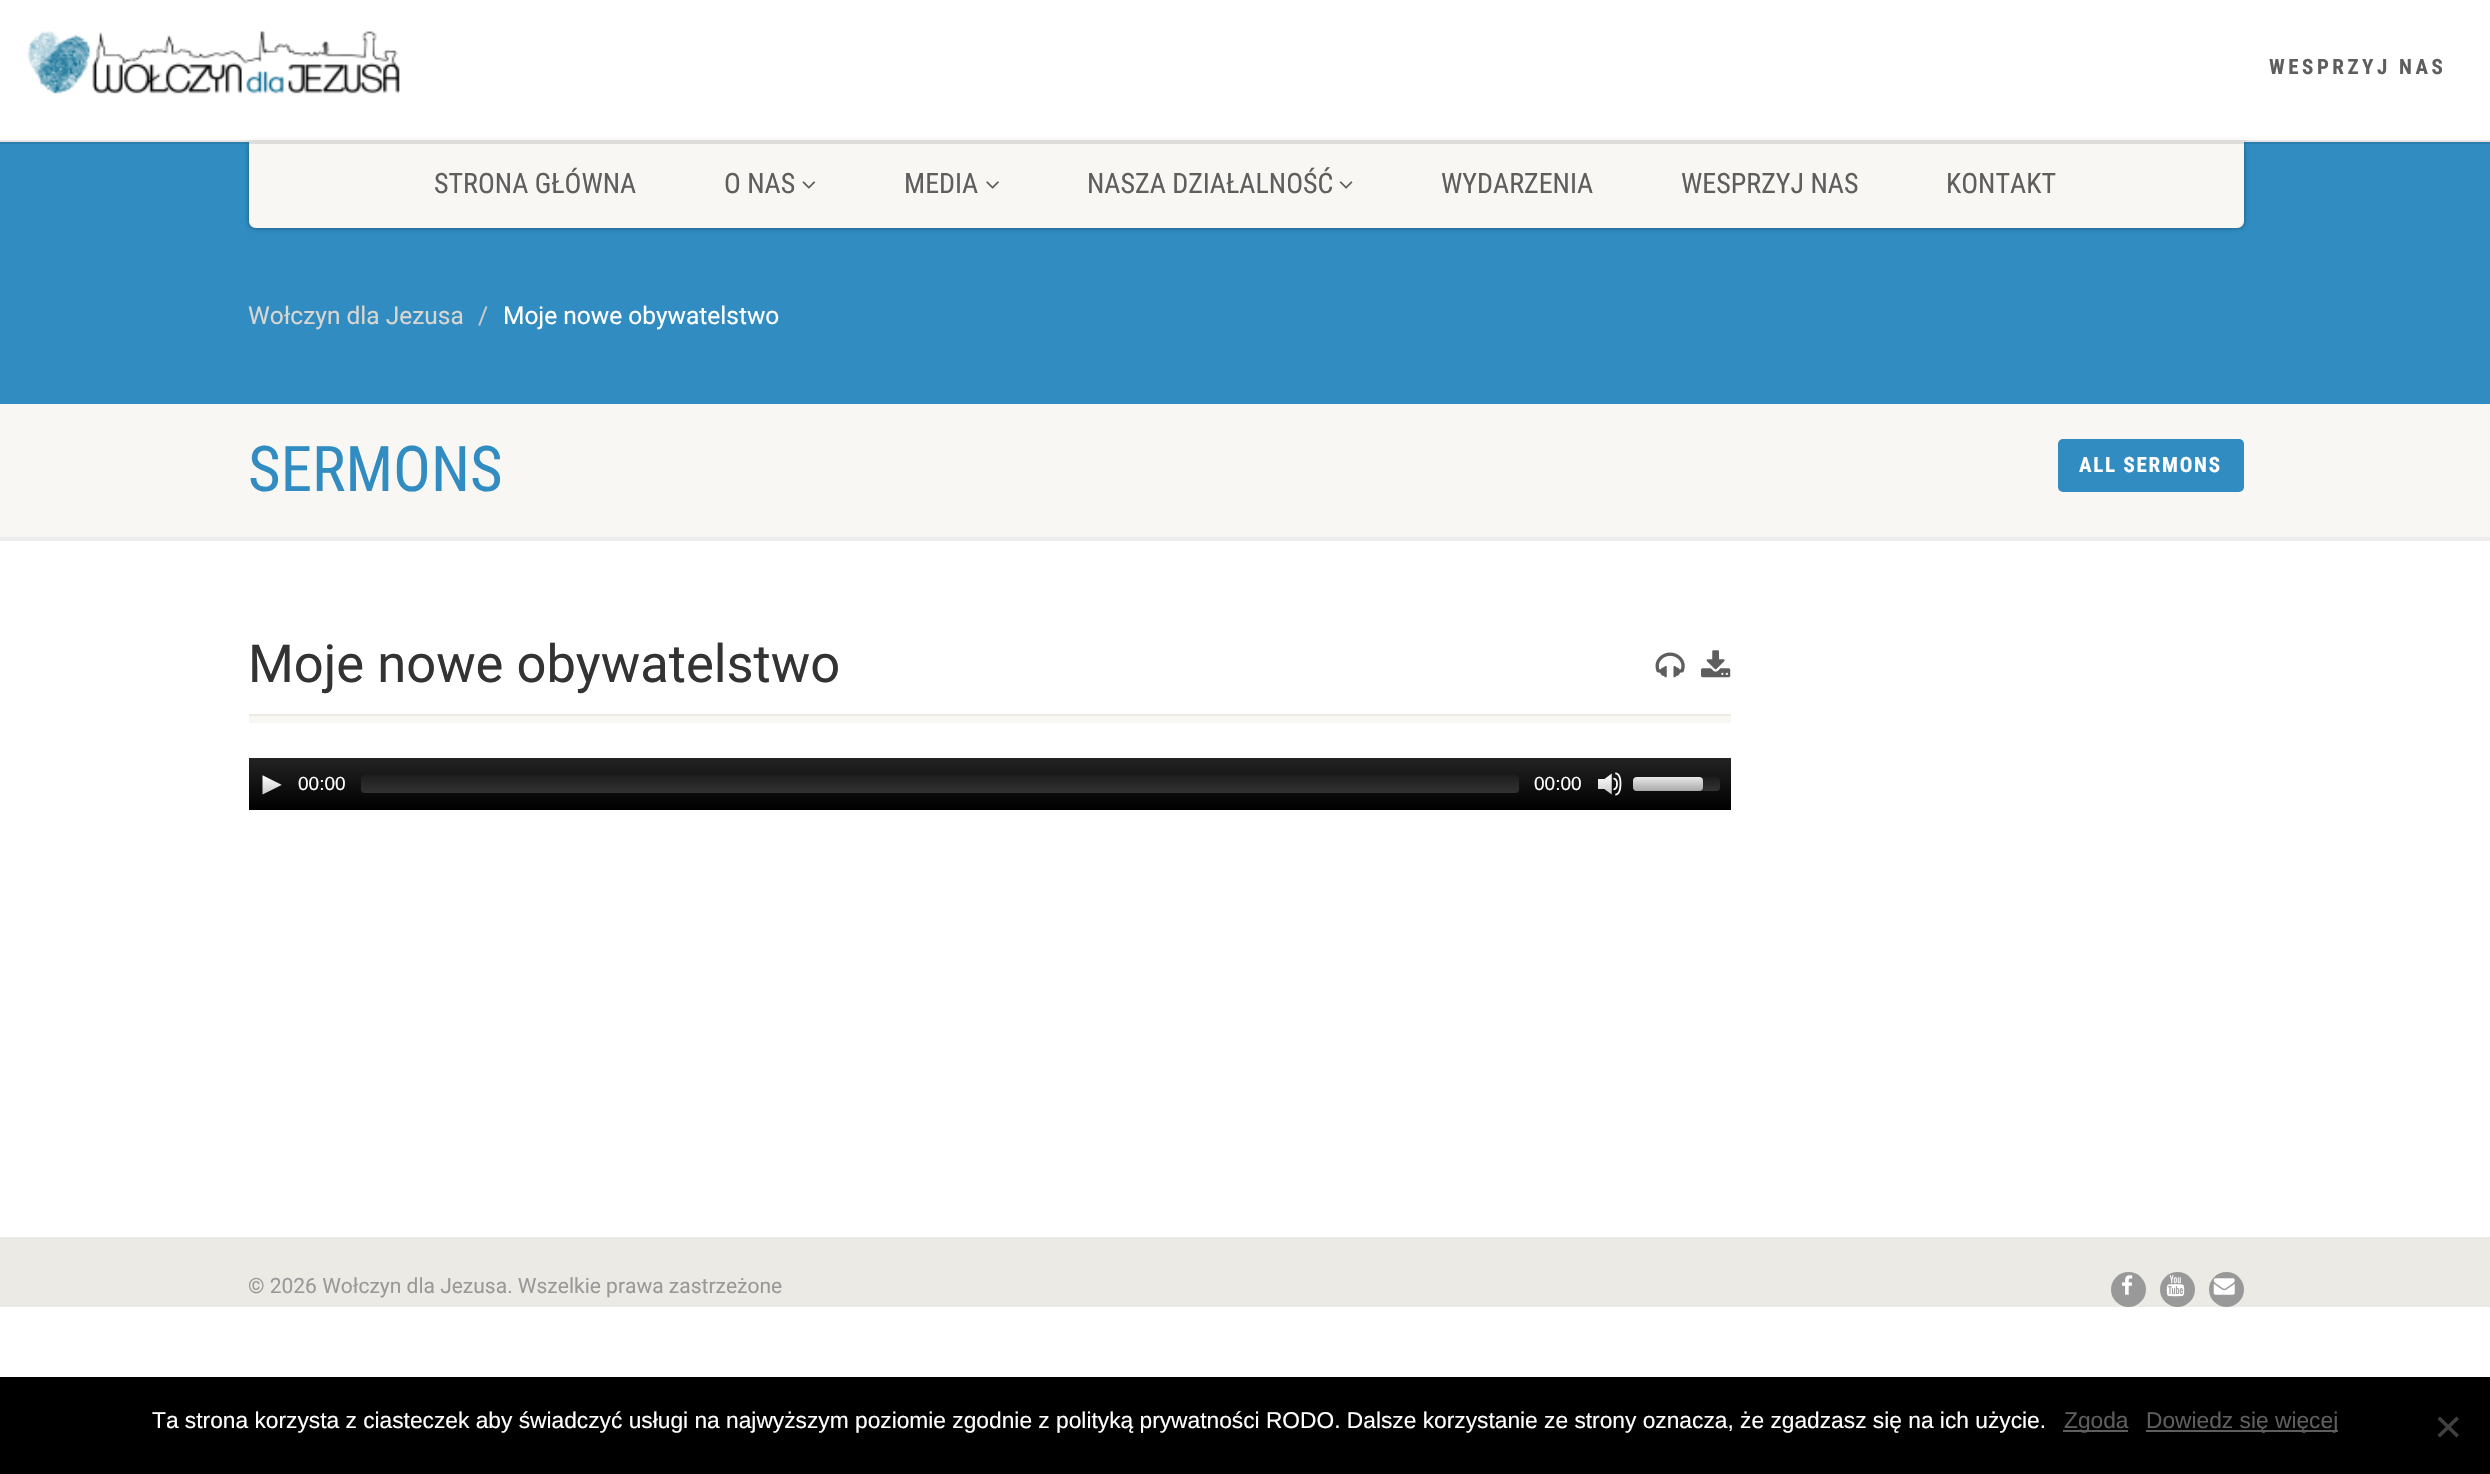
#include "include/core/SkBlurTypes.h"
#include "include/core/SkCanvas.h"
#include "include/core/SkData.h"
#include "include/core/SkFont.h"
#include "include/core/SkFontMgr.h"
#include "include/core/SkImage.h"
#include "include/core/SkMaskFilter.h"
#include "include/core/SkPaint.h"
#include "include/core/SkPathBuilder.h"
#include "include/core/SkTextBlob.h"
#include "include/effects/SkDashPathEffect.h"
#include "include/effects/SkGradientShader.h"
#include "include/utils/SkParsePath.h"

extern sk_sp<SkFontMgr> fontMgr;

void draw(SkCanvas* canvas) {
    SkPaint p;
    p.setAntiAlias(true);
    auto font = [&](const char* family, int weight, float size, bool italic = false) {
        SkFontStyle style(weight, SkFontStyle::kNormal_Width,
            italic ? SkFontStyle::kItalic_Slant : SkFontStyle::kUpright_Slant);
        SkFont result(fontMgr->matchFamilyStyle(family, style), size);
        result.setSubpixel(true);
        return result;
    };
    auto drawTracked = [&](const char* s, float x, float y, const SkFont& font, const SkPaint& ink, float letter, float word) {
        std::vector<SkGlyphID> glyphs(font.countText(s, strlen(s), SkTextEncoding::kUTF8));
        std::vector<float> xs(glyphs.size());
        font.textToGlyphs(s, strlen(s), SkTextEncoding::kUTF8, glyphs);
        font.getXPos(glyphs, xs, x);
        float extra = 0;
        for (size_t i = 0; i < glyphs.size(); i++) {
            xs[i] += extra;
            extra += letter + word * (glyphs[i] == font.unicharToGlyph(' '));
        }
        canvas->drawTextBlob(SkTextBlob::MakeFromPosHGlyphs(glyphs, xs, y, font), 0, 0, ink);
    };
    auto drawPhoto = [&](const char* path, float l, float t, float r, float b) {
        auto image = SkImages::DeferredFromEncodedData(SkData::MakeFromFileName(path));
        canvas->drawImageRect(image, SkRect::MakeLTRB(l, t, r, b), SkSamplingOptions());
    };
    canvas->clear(0xFFFFFFFF);
    p.setColor(0xFF308CC1);
    canvas->drawRect(SkRect::MakeLTRB(0, 142, 2490, 404), p);
    p.setColor(0x66000000);
    p.setMaskFilter(SkMaskFilter::MakeBlur(kNormal_SkBlurStyle, 2.5f));
    canvas->drawRoundRect(SkRect::MakeLTRB(249, 140, 2244, 228), 7, 7, p);
    p.setMaskFilter(nullptr);
    p.setColor(0xFFF8F7F3);
    canvas->drawPath(SkPathBuilder().moveTo(249, 140).lineTo(2244, 140).lineTo(2244, 221).cubicTo(2244, 225, 2241, 228, 2237, 228).lineTo(256, 228).cubicTo(252, 228, 249, 225, 249, 221).close().detach(), p);
    p.setColor(0x1A000000);
    canvas->drawRect(SkRect::MakeLTRB(0, 140, 2490, 144), p);
    p.setColor(0xCCFFFFFF);
    canvas->drawRect(SkRect::MakeLTRB(248, 135, 2245, 140), p);
    drawPhoto("media/1.png", 27, 31, 400, 94);
    auto font1 = font("Roboto Condensed", 700, 21);
    p.setColor(0xFF5E5E5E);
    drawTracked("WESPRZYJ NAS", 2269, 74, font1, p, 3.5f, 0);
    auto font2 = font("Roboto Condensed", 400, 28);
    canvas->drawString("STRONA GŁÓWNA", 434, 193, font2, p);
    canvas->drawString("O NAS", 724, 193, font2, p);
    drawPhoto("media/2.png", 802, 181, 816, 189);
    canvas->drawString("MEDIA", 904, 193, font2, p);
    drawPhoto("media/3.png", 986, 181, 999, 189);
    canvas->drawString("NASZA DZIAŁALNOŚĆ", 1087, 193, font2, p);
    drawPhoto("media/4.png", 1339, 181, 1353, 189);
    {
        const struct { const char* s; float x, y; } items[] = {
            {"WYDARZENIA", 1441, 193},
            {"WESPRZYJ NAS", 1681, 193},
            {"KONTAKT", 1946, 193},
        };
        for (auto [s, x, y] : items) {
            canvas->drawString(s, x, y, font2, p);
        }
    }
    auto font3 = font("Roboto", 400, 24.5f);
    p.setColor(0xFFD8D6D1);
    canvas->drawString("Wołczyn dla Jezusa", 248, 324, font3, p);
    p.setColor(0xFFCCCCCC);
    canvas->drawString("/", 478, 324, font3, p);
    p.setColor(0xFFFFFFFF);
    canvas->drawString("Moje nowe obywatelstwo", 503, 324, font3, p);
    p.setColor(0xFFEDEDED);
    canvas->drawRect(SkRect::MakeLTRB(0, 537, 2490, 541), p);
    p.setColor(0xFFF8F7F3);
    canvas->drawRect(SkRect::MakeLTRB(0, 404, 2490, 537), p);
    auto font4 = font("Roboto Condensed", 400, 63);
    p.setColor(0xFF308CC1);
    canvas->drawString("SERMONS", 248, 491, font4, p);
    canvas->drawRoundRect(SkRect::MakeLTRB(2058, 439, 2244, 492), 5, 5, p);
    p.setColor(0xFFFFFFFF);
    drawTracked("ALL SERMONS", 2079, 472, font1, p, 1.75f, 0);
    p.setColor(0xFFECEAE4);
    canvas->drawRect(SkRect::MakeLTRB(249, 714, 1731, 716), p);
    auto font5 = font("Roboto", 400, 52.5f);
    p.setColor(0xFF333333);
    canvas->drawString("Moje nowe obywatelstwo", 248, 682, font5, p);
    drawPhoto("media/5.png", 1655, 652, 1685, 678);
    drawPhoto("media/6.png", 1701, 650, 1731, 678);
    p.setColor(0xFFF8F7F3);
    canvas->drawRect(SkRect::MakeLTRB(249, 716, 1731, 723), p);
    {
        const SkColor colors[] = {0xFF232323, 0xFF000000};
        const float stops[] = {0, 1};
        const SkPoint ends[] = {{990, 758}, {990, 810}};
        p.setShader(SkGradientShader::MakeLinear(ends, colors, stops, 2, SkTileMode::kClamp));
        p.setAlpha(255);
    }
    canvas->drawRect(SkRect::MakeLTRB(249, 758, 1731, 810), p);
    drawPhoto("media/7.png", 262, 775, 282, 795);
    auto font6 = font("Liberation Sans", 400, 19);
    p.setShader(nullptr);
    p.setColor(0xFFFFFFFF);
    canvas->drawString("00:00", 298, 790, font6, p);
    {
        const SkColor colors[] = {0xCC1E1E1E, 0xCC3C3C3C};
        const float stops[] = {0, 1};
        const SkPoint ends[] = {{940, 775}, {940, 793}};
        p.setShader(SkGradientShader::MakeLinear(ends, colors, stops, 2, SkTileMode::kClamp));
        p.setAlpha(255);
    }
    canvas->drawRoundRect(SkRect::MakeLTRB(361, 775, 1519, 793), 4, 4, p);
    p.setShader(nullptr);
    p.setColor(0xFFFFFFFF);
    canvas->drawString("00:00", 1534, 790, font6, p);
    drawPhoto("media/8.png", 1598, 772, 1622, 796);
    {
        const SkColor colors[] = {0xCC1E1E1E, 0xCC3C3C3C};
        const float stops[] = {0, 1};
        const SkPoint ends[] = {{1677, 777}, {1677, 791}};
        p.setShader(SkGradientShader::MakeLinear(ends, colors, stops, 2, SkTileMode::kClamp));
        p.setAlpha(255);
    }
    canvas->drawRoundRect(SkRect::MakeLTRB(1633, 777, 1720, 791), 4, 4, p);
    {
        const SkColor colors[] = {0xE6FFFFFF, 0xCCC8C8C8};
        const float stops[] = {0, 1};
        const SkPoint ends[] = {{1668, 777}, {1668, 791}};
        p.setShader(SkGradientShader::MakeLinear(ends, colors, stops, 2, SkTileMode::kClamp));
        p.setAlpha(255);
    }
    canvas->drawRoundRect(SkRect::MakeLTRB(1633, 777, 1703, 791), 4, 4, p);
    p.setShader(nullptr);
    p.setColor(0xFFECEAE4);
    canvas->drawRect(SkRect::MakeLTRB(0, 1237, 2490, 1307), p);
    auto font7 = font("Roboto", 400, 21);
    p.setColor(0xFF999999);
    canvas->drawString("© 2026 Wołczyn dla Jezusa. Wszelkie prawa zastrzeżone", 248, 1293, font7, p);
    canvas->drawCircle(2128.5f, 1289.5f, 17.5f, p);
    drawPhoto("media/9.png", 2122, 1275, 2133, 1295);
    canvas->drawCircle(2177.5f, 1289.5f, 17.5f, p);
    drawPhoto("media/10.png", 2166, 1275, 2185, 1297);
    canvas->drawCircle(2226.5f, 1289.5f, 17.5f, p);
    drawPhoto("media/11.png", 2213, 1278, 2235, 1295);
    p.setColor(0xFF000000);
    canvas->drawRect(SkRect::MakeLTRB(0, 1377, 2490, 1474), p);
    auto font8 = font("Liberation Sans", 400, 22.75f);
    p.setColor(0xFFFFFFFF);
    canvas->drawString("Ta strona korzysta z ciasteczek aby świadczyć usługi na najwyższym poziomie zgodnie z polityką prywatności RODO. Dalsze korzystanie ze strony oznacza, że zgadzasz się na ich użycie.", 152, 1428, font8, p);
    p.setColor(0xFF5E5E5E);
    canvas->drawRect(SkRect::MakeLTRB(2063, 1430, 2128, 1432), p);
    canvas->drawString("Zgoda", 2064, 1428, font8, p);
    canvas->drawRect(SkRect::MakeLTRB(2146, 1430, 2338, 1432), p);
    canvas->drawString("Dowiedz się więcej", 2146, 1428, font8, p);
    p.setColor(0xFF404040);
    canvas->drawPath(SkPathBuilder().moveTo(2456.5f, 1416.5f).lineTo(2459, 1419).lineTo(2440, 1437.5f).lineTo(2437.5f, 1435).close().detach(), p);
    canvas->drawPath(SkPathBuilder().moveTo(2437.5f, 1419).lineTo(2440, 1416.5f).lineTo(2459, 1435).lineTo(2456.5f, 1437.5f).close().detach(), p);
}
